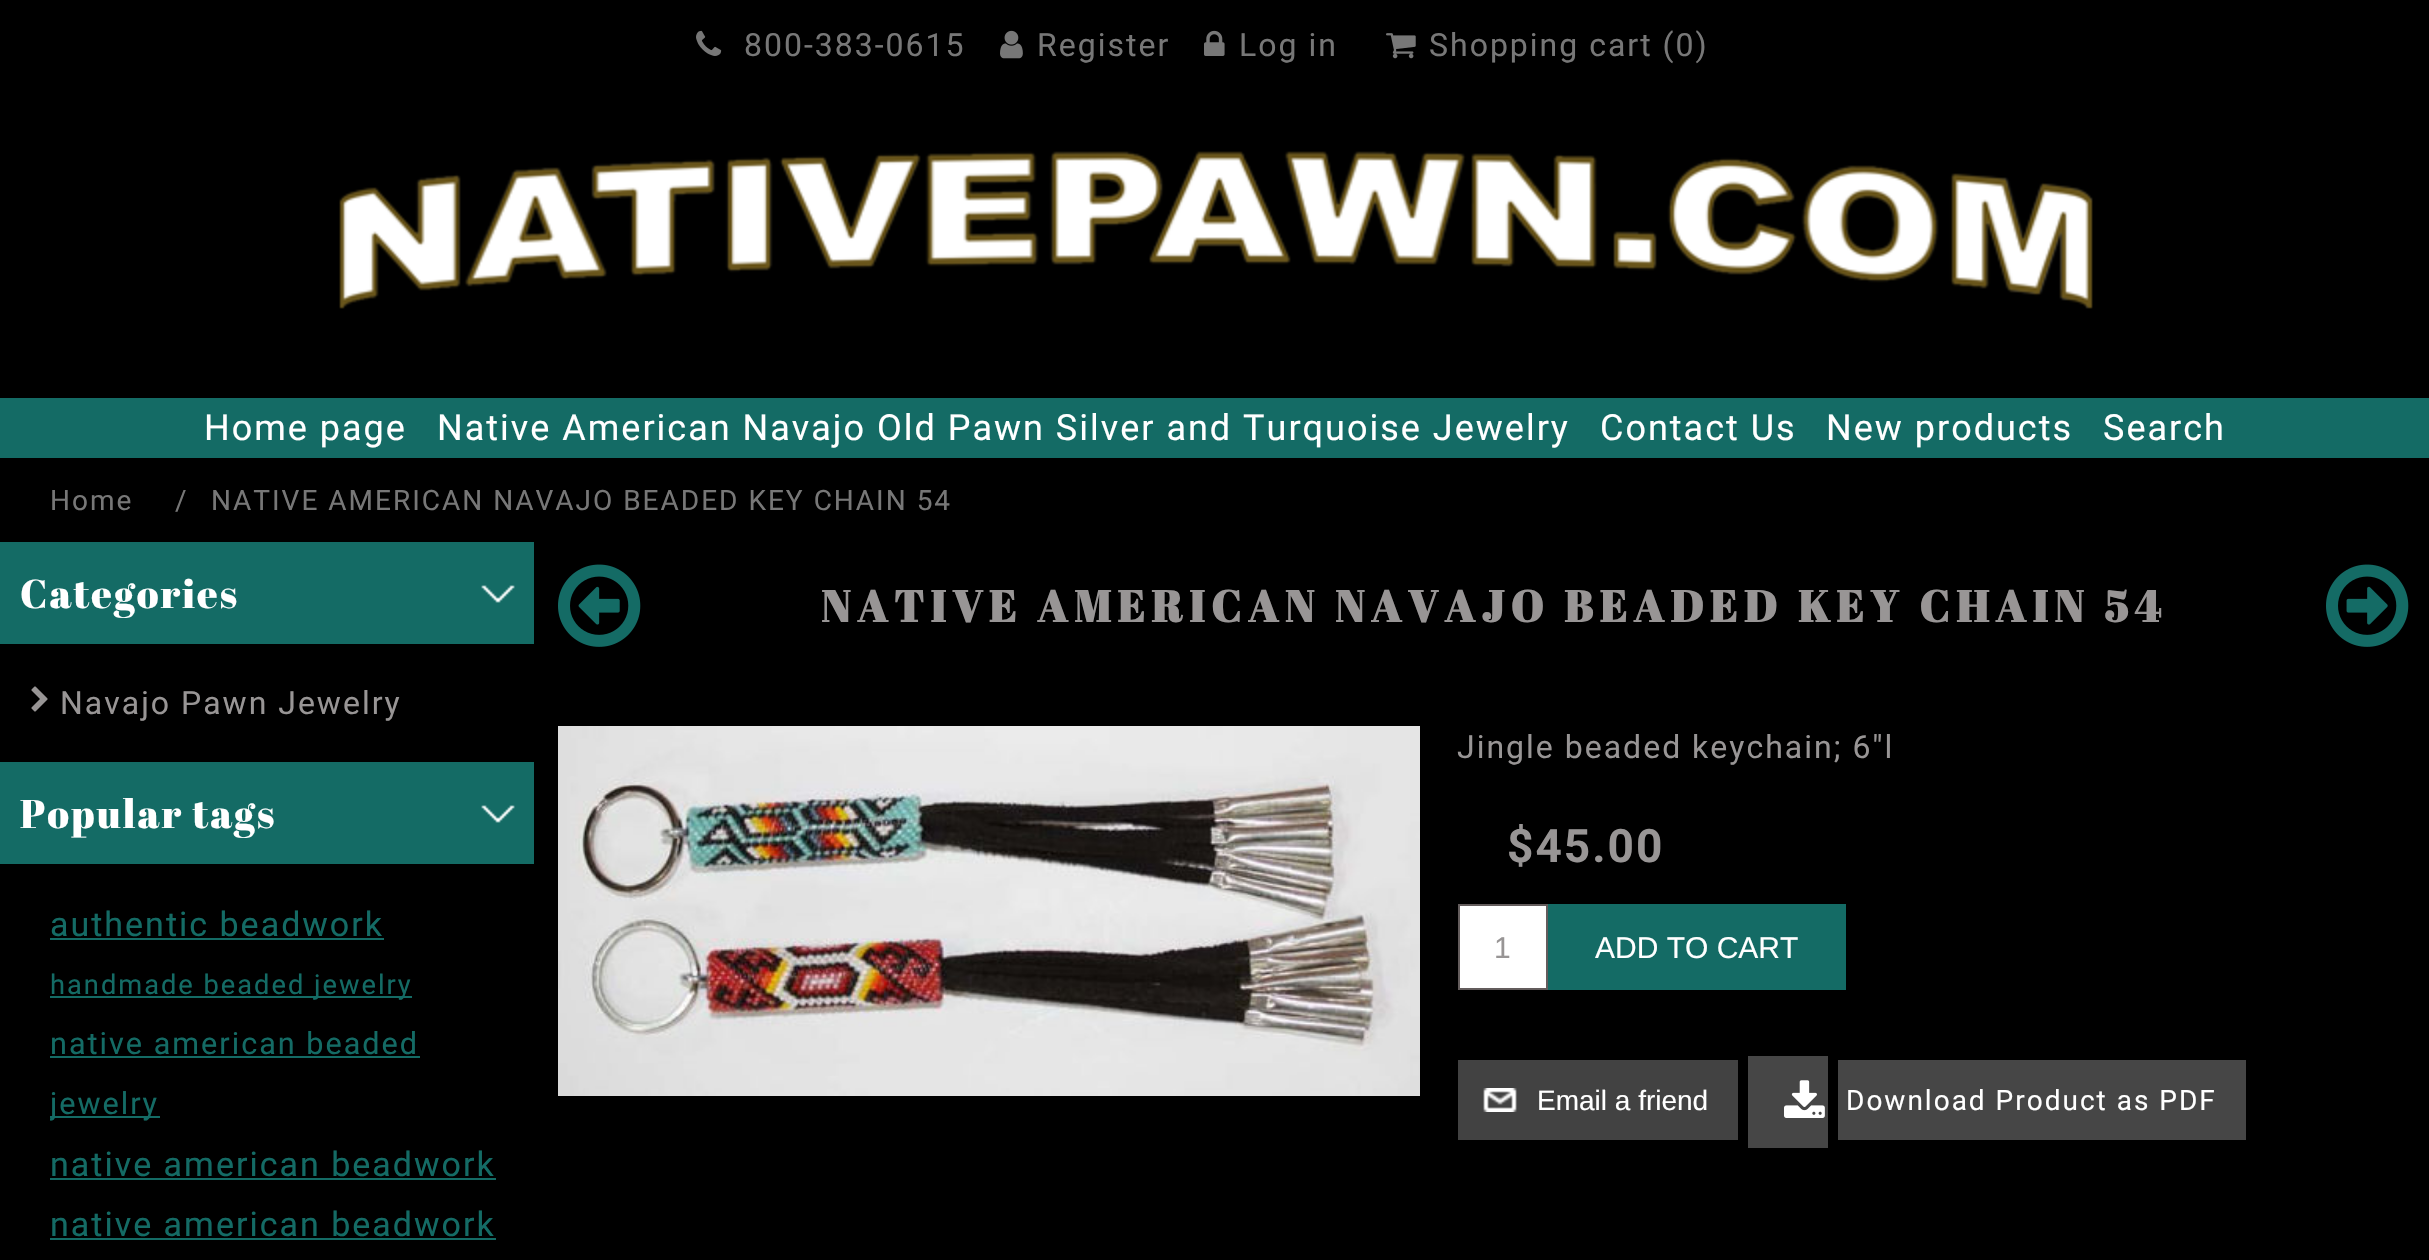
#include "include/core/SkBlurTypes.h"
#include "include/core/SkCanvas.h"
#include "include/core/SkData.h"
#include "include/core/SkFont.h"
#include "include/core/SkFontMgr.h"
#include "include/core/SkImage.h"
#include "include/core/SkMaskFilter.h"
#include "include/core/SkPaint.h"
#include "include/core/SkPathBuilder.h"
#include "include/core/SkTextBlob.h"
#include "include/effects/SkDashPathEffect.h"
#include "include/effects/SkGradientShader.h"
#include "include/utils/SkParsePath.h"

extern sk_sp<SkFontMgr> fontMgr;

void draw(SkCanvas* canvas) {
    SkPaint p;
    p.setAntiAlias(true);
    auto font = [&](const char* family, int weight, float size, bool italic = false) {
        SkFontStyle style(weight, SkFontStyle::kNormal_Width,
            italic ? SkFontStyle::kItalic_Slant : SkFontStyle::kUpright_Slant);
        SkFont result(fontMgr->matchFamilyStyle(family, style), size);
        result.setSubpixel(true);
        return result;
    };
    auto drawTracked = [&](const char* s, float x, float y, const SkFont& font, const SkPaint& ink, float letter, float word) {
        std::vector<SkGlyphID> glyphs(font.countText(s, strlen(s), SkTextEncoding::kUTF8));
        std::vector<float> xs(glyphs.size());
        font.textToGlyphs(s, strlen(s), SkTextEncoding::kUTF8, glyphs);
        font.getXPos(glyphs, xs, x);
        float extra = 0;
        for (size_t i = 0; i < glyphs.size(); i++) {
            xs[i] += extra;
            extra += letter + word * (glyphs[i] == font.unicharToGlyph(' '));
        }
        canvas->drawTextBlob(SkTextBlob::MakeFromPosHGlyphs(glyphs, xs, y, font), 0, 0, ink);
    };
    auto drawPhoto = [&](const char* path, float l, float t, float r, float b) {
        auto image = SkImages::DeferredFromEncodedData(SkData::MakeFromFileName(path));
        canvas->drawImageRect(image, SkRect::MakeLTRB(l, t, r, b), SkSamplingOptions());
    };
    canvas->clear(0xFF000000);
    drawPhoto("media/1.png", 696, 30, 722, 56);
    auto font1 = font("Roboto", 400, 32);
    p.setColor(0xFF777777);
    drawTracked("800-383-0615", 744, 56, font1, p, 2, 0);
    drawPhoto("media/2.png", 1000, 30, 1023, 59);
    drawTracked("Register", 1037, 56, font1, p, 2, 0);
    drawPhoto("media/3.png", 1204, 30, 1225, 56);
    drawTracked("Log in", 1239, 56, font1, p, 2, 0);
    drawPhoto("media/4.png", 1386, 33, 1416, 59);
    drawTracked("Shopping cart (0)", 1429, 56, font1, p, 2, 0);
    drawPhoto("media/5.png", 339, 151, 2093, 309);
    p.setColor(0xFF146B65);
    canvas->drawRect(SkRect::MakeLTRB(0, 398, 2429, 458), p);
    auto font2 = font("Roboto", 400, 36);
    p.setColor(0xFFFFFFFF);
    {
        const struct { const char* s; float x, y; } items[] = {
            {"Home page", 204, 440},
            {"Native American Navajo Old Pawn Silver and Turquoise Jewelry", 437, 440},
            {"Contact Us", 1600, 440},
            {"New products", 1826, 440},
            {"Search", 2103, 440},
        };
        for (auto [s, x, y] : items) {
            drawTracked(s, x, y, font2, p, 2, 0);
        }
    }
    auto font3 = font("Roboto", 400, 28);
    p.setColor(0xFF777777);
    {
        const struct { const char* s; float x, y; } items[] = {
            {"Home", 50, 510},
            {"/", 175, 510},
            {"NATIVE AMERICAN NAVAJO BEADED KEY CHAIN 54", 211, 510},
        };
        for (auto [s, x, y] : items) {
            drawTracked(s, x, y, font3, p, 2, 0);
        }
    }
    p.setColor(0xFF146B65);
    canvas->drawRect(SkRect::MakeLTRB(0, 542, 534, 644), p);
    drawPhoto("media/6.png", 481, 585, 515, 603);
    auto font4 = font("Abril Fatface", 400, 40);
    p.setColor(0xFFFFFFFF);
    drawTracked("Categories", 20, 608, font4, p, 2, 0);
    drawPhoto("media/7.png", 31, 686, 48, 712);
    p.setColor(0xFF989595);
    drawTracked("Navajo Pawn Jewelry", 60, 714, font1, p, 2, 0);
    p.setColor(0xFF146B65);
    canvas->drawRect(SkRect::MakeLTRB(0, 762, 534, 864), p);
    drawPhoto("media/6.png", 481, 805, 515, 823);
    p.setColor(0xFFFFFFFF);
    drawTracked("Popular tags", 20, 828, font4, p, 2, 0);
    auto font5 = font("Roboto", 400, 34);
    p.setColor(0xFF146B65);
    drawTracked("authentic beadwork", 50, 936, font5, p, 2, 0);
    canvas->drawRect(SkRect::MakeLTRB(50, 938, 384, 940), p);
    canvas->drawRect(SkRect::MakeLTRB(50, 996, 412, 998), p);
    auto font6 = font("Roboto", 400, 27.25f);
    drawTracked("handmade beaded jewelry", 50, 994, font6, p, 2, 0);
    auto font7 = font("Roboto", 400, 30.6f);
    drawTracked("native american beaded", 50, 1054, font7, p, 2, 0);
    canvas->drawRect(SkRect::MakeLTRB(50, 1056, 420, 1058), p);
    canvas->drawRect(SkRect::MakeLTRB(50, 1116, 160, 1118), p);
    canvas->save();
    canvas->clipRect(SkRect::MakeLTRB(50, 1014, 504, 1134));
    drawTracked("jewelry", 50, 1114, font7, p, 2, 0);
    canvas->restore();
    drawTracked("native american beadwork", 50, 1176, font5, p, 2, 0);
    canvas->drawRect(SkRect::MakeLTRB(50, 1178, 496, 1180), p);
    drawTracked("native american beadwork", 50, 1236, font5, p, 2, 0);
    canvas->drawRect(SkRect::MakeLTRB(50, 1238, 496, 1240), p);
    drawPhoto("media/8.png", 558, 564, 641, 647);
    drawPhoto("media/9.png", 2326, 564, 2409, 647);
    auto font8 = font("Abril Fatface", 700, 44);
    p.setColor(0xFF989595);
    drawTracked("NATIVE AMERICAN NAVAJO BEADED KEY CHAIN 54", 821, 622, font8, p, 6.4f, 0);
    drawPhoto("media/10.png", 558, 726, 1420, 1096);
    drawTracked("Jingle beaded keychain; 6\"l", 1457, 758, font1, p, 2, 0);
    auto font9 = font("Roboto", 700, 46);
    drawTracked("$45.00", 1507, 862, font9, p, 2, 0);
    p.setColor(0xFFFFFFFF);
    canvas->drawRect(SkRect::MakeLTRB(1459, 905, 1547, 989), p);
    p.setStyle(SkPaint::kStroke_Style);
    p.setStrokeWidth(2);
    p.setColor(0xFF635C5C);
    canvas->drawRect(SkRect::MakeLTRB(1459, 905, 1547, 989), p);
    auto font10 = font("Liberation Sans", 400, 30);
    p.setStyle(SkPaint::kFill_Style);
    p.setColor(0xFF989595);
    canvas->drawString("1", 1494, 958, font10, p);
    p.setColor(0xFF146B65);
    canvas->drawRect(SkRect::MakeLTRB(1548, 904, 1846, 990), p);
    p.setColor(0xFFFFFFFF);
    canvas->drawString("ADD TO CART", 1595, 958, font10, p);
    p.setColor(0xFF424242);
    canvas->drawRect(SkRect::MakeLTRB(1458, 1060, 1738, 1140), p);
    drawPhoto("media/11.png", 1483, 1088, 1517, 1112);
    auto font11 = font("Liberation Sans", 400, 28);
    p.setColor(0xFFFFFFFF);
    canvas->drawString("Email a friend", 1537, 1110, font11, p);
    p.setColor(0xFF464646);
    canvas->drawRect(SkRect::MakeLTRB(1748, 1056, 1828, 1148), p);
    canvas->drawRect(SkRect::MakeLTRB(1838, 1060, 2246, 1140), p);
    drawPhoto("media/12.png", 1784, 1080, 1825, 1118);
    p.setColor(0xFFFFFFFF);
    drawTracked("Download Product as PDF", 1846, 1110, font3, p, 2, 0);
}
